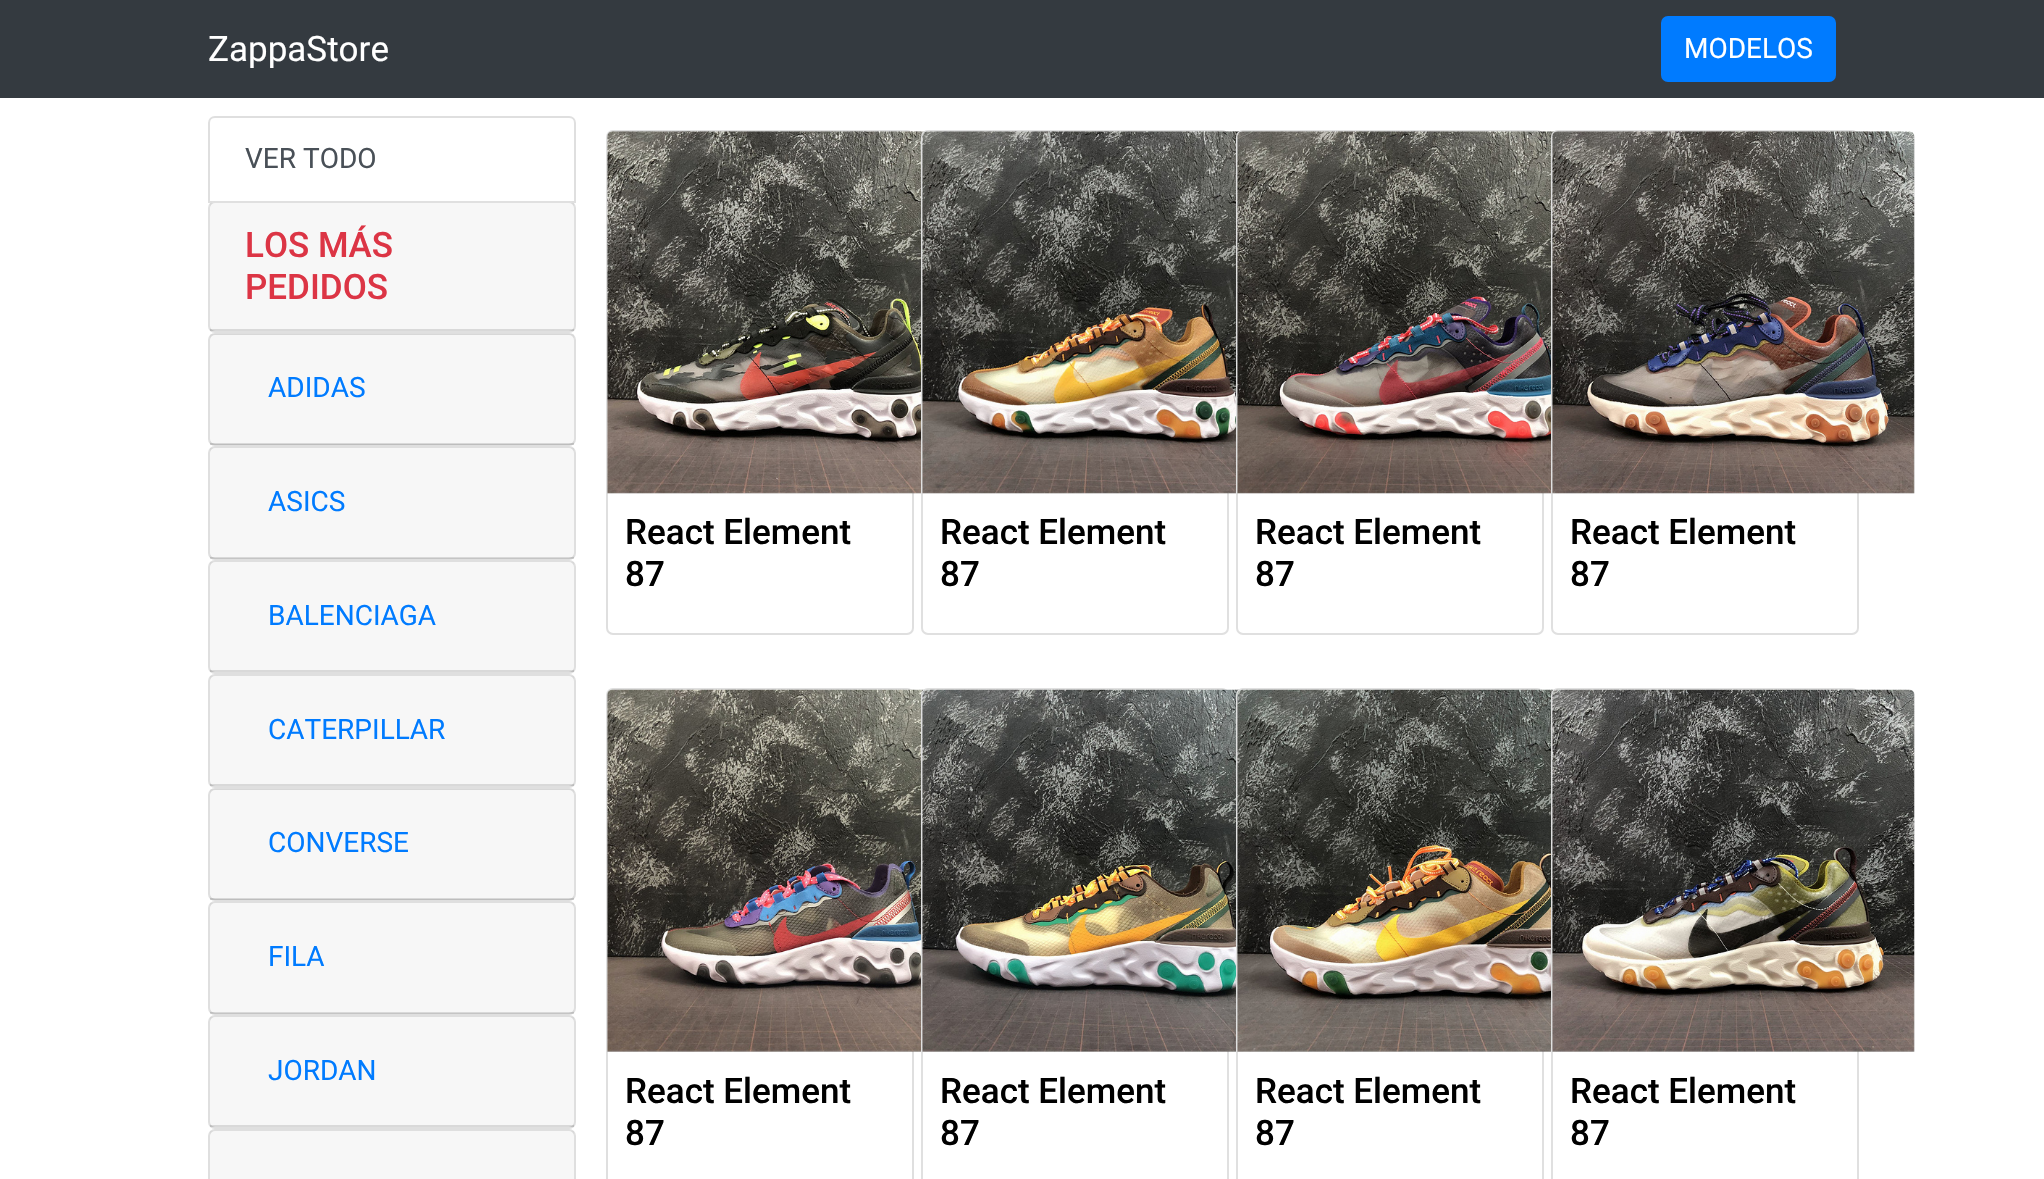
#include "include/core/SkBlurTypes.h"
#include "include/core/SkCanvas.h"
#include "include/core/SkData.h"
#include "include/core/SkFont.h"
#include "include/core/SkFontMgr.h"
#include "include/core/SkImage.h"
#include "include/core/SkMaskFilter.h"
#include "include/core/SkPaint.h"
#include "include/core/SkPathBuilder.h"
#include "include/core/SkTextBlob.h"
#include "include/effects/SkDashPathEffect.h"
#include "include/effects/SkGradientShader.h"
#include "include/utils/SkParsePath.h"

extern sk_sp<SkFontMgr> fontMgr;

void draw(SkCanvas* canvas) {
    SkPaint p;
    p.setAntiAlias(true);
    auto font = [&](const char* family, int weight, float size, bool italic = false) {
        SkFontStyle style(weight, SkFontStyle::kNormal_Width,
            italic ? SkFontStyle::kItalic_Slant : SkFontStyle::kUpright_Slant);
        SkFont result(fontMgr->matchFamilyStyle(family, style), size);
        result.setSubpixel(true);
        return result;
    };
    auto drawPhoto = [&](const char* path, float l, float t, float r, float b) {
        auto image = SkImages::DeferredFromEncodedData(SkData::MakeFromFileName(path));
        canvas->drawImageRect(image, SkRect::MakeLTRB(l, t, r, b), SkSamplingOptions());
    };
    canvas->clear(0xFFFFFFFF);
    p.setColor(0xFF343A40);
    canvas->drawRect(SkRect::MakeLTRB(0, 0, 2044, 98), p);
    auto font1 = font("Roboto", 400, 35);
    p.setColor(0xFFFFFFFF);
    canvas->drawString("ZappaStore", 208, 61, font1, p);
    p.setColor(0xFF007BFF);
    canvas->drawRoundRect(SkRect::MakeLTRB(1662, 17, 1835, 81), 6, 6, p);
    p.setStyle(SkPaint::kStroke_Style);
    p.setStrokeWidth(2);
    canvas->drawRoundRect(SkRect::MakeLTRB(1662, 17, 1835, 81), 6, 6, p);
    auto font2 = font("Roboto", 400, 28);
    p.setStyle(SkPaint::kFill_Style);
    p.setColor(0xFFFFFFFF);
    canvas->drawString("MODELOS", 1684, 58, font2, p);
    p.setStyle(SkPaint::kStroke_Style);
    p.setColor(0xFFDFDFDF);
    canvas->drawPath(SkPathBuilder().moveTo(215, 117).lineTo(569, 117).cubicTo(572.5f, 117, 575, 119.5f, 575, 123).lineTo(575, 202).lineTo(209, 202).lineTo(209, 123).cubicTo(209, 119.5f, 211.5f, 117, 215, 117).close().detach(), p);
    p.setStyle(SkPaint::kFill_Style);
    p.setColor(0xFF495057);
    canvas->drawString("VER TODO", 245, 168, font2, p);
    p.setColor(0xFFFFFFFF);
    canvas->drawRoundRect(SkRect::MakeLTRB(208, 201, 576, 333), 7, 7, p);
    p.setStyle(SkPaint::kStroke_Style);
    p.setColor(0x1F000000);
    canvas->drawRoundRect(SkRect::MakeLTRB(209, 202, 575, 332), 6, 6, p);
    p.setStyle(SkPaint::kFill_Style);
    p.setColor(0x08000000);
    canvas->drawRect(SkRect::MakeLTRB(210, 203, 574, 331), p);
    p.setColor(0x1F000000);
    canvas->drawRect(SkRect::MakeLTRB(210, 329, 574, 331), p);
    auto font3 = font("Roboto", 500, 35);
    p.setColor(0xFFDC3545);
    canvas->drawString("LOS MÁS", 245, 257, font3, p);
    canvas->drawString("PEDIDOS", 245, 299, font3, p);
    p.setStyle(SkPaint::kStroke_Style);
    p.setColor(0xFFDFDFDF);
    canvas->drawRoundRect(SkRect::MakeLTRB(209, 334, 575, 445), 6, 6, p);
    p.setStyle(SkPaint::kFill_Style);
    p.setColor(0x08000000);
    canvas->drawRect(SkRect::MakeLTRB(210, 334, 574, 445), p);
    p.setColor(0x1F000000);
    canvas->drawRect(SkRect::MakeLTRB(210, 443, 574, 445), p);
    p.setColor(0xFF007BFF);
    canvas->drawString("ADIDAS", 268, 397, font2, p);
    p.setStyle(SkPaint::kStroke_Style);
    p.setColor(0xFFDFDFDF);
    canvas->drawRoundRect(SkRect::MakeLTRB(209, 447, 575, 559), 6, 6, p);
    p.setStyle(SkPaint::kFill_Style);
    p.setColor(0x08000000);
    canvas->drawRect(SkRect::MakeLTRB(210, 448, 574, 558), p);
    p.setColor(0x1F000000);
    canvas->drawRect(SkRect::MakeLTRB(210, 557, 574, 559), p);
    p.setColor(0xFF007BFF);
    canvas->drawString("ASICS", 268, 511, font2, p);
    p.setStyle(SkPaint::kStroke_Style);
    p.setColor(0xFFDFDFDF);
    canvas->drawRoundRect(SkRect::MakeLTRB(209, 561, 575, 673), 6, 6, p);
    p.setStyle(SkPaint::kFill_Style);
    p.setColor(0x08000000);
    canvas->drawRect(SkRect::MakeLTRB(210, 562, 574, 672), p);
    p.setColor(0x1F000000);
    canvas->drawRect(SkRect::MakeLTRB(210, 670, 574, 672), p);
    p.setColor(0xFF007BFF);
    canvas->drawString("BALENCIAGA", 268, 625, font2, p);
    p.setStyle(SkPaint::kStroke_Style);
    p.setColor(0xFFDFDFDF);
    canvas->drawRoundRect(SkRect::MakeLTRB(209, 675, 575, 787), 6, 6, p);
    p.setStyle(SkPaint::kFill_Style);
    p.setColor(0x08000000);
    canvas->drawRect(SkRect::MakeLTRB(210, 676, 574, 786), p);
    p.setColor(0x1F000000);
    canvas->drawRect(SkRect::MakeLTRB(210, 784, 574, 786), p);
    p.setColor(0xFF007BFF);
    canvas->drawString("CATERPILLAR", 268, 739, font2, p);
    p.setStyle(SkPaint::kStroke_Style);
    p.setColor(0xFFDFDFDF);
    canvas->drawRoundRect(SkRect::MakeLTRB(209, 789, 575, 900), 6, 6, p);
    p.setStyle(SkPaint::kFill_Style);
    p.setColor(0x08000000);
    canvas->drawRect(SkRect::MakeLTRB(210, 789, 574, 900), p);
    p.setColor(0x1F000000);
    canvas->drawRect(SkRect::MakeLTRB(210, 898, 574, 900), p);
    p.setColor(0xFF007BFF);
    canvas->drawString("CONVERSE", 268, 852, font2, p);
    p.setStyle(SkPaint::kStroke_Style);
    p.setColor(0xFFDFDFDF);
    canvas->drawRoundRect(SkRect::MakeLTRB(209, 902, 575, 1014), 6, 6, p);
    p.setStyle(SkPaint::kFill_Style);
    p.setColor(0x08000000);
    canvas->drawRect(SkRect::MakeLTRB(210, 903, 574, 1013), p);
    p.setColor(0x1F000000);
    canvas->drawRect(SkRect::MakeLTRB(210, 1012, 574, 1014), p);
    p.setColor(0xFF007BFF);
    canvas->drawString("FILA", 268, 966, font2, p);
    p.setStyle(SkPaint::kStroke_Style);
    p.setColor(0xFFDFDFDF);
    canvas->drawRoundRect(SkRect::MakeLTRB(209, 1016, 575, 1128), 6, 6, p);
    p.setStyle(SkPaint::kFill_Style);
    p.setColor(0x08000000);
    canvas->drawRect(SkRect::MakeLTRB(210, 1017, 574, 1127), p);
    p.setColor(0x1F000000);
    canvas->drawRect(SkRect::MakeLTRB(210, 1125, 574, 1127), p);
    p.setColor(0xFF007BFF);
    canvas->drawString("JORDAN", 268, 1080, font2, p);
    p.setStyle(SkPaint::kStroke_Style);
    p.setColor(0xFFDFDFDF);
    canvas->drawRoundRect(SkRect::MakeLTRB(209, 1130, 575, 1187), 6, 6, p);
    p.setStyle(SkPaint::kFill_Style);
    p.setColor(0x08000000);
    canvas->drawRect(SkRect::MakeLTRB(210, 1131, 574, 1179), p);
    p.setStyle(SkPaint::kStroke_Style);
    p.setColor(0xFFDFDFDF);
    canvas->drawRoundRect(SkRect::MakeLTRB(607, 131, 913, 634), 6, 6, p);
    drawPhoto("media/1.png", 607, 131, 925, 494);
    p.setStyle(SkPaint::kFill_Style);
    p.setColor(0xFF000000);
    canvas->drawString("React Element", 625, 544, font3, p);
    canvas->drawString("87", 625, 586, font3, p);
    p.setColor(0xFFFFFFFF);
    canvas->drawRoundRect(SkRect::MakeLTRB(921, 130, 1229, 635), 7, 7, p);
    p.setStyle(SkPaint::kStroke_Style);
    p.setColor(0x1F000000);
    canvas->drawRoundRect(SkRect::MakeLTRB(922, 131, 1228, 634), 6, 6, p);
    drawPhoto("media/2.png", 922, 131, 1240, 494);
    p.setStyle(SkPaint::kFill_Style);
    p.setColor(0xFF000000);
    canvas->drawString("React Element", 940, 544, font3, p);
    canvas->drawString("87", 940, 586, font3, p);
    p.setColor(0xFFFFFFFF);
    canvas->drawRoundRect(SkRect::MakeLTRB(1236, 130, 1544, 635), 7, 7, p);
    p.setStyle(SkPaint::kStroke_Style);
    p.setColor(0x1F000000);
    canvas->drawRoundRect(SkRect::MakeLTRB(1237, 131, 1543, 634), 6, 6, p);
    drawPhoto("media/3.png", 1237, 131, 1555, 494);
    p.setStyle(SkPaint::kFill_Style);
    p.setColor(0xFF000000);
    canvas->drawString("React Element", 1255, 544, font3, p);
    canvas->drawString("87", 1255, 586, font3, p);
    p.setColor(0xFFFFFFFF);
    canvas->drawRoundRect(SkRect::MakeLTRB(1551, 130, 1859, 635), 7, 7, p);
    p.setStyle(SkPaint::kStroke_Style);
    p.setColor(0x1F000000);
    canvas->drawRoundRect(SkRect::MakeLTRB(1552, 131, 1858, 634), 6, 6, p);
    drawPhoto("media/4.png", 1552, 131, 1915, 494);
    p.setStyle(SkPaint::kFill_Style);
    p.setColor(0xFF000000);
    canvas->drawString("React Element", 1570, 544, font3, p);
    canvas->drawString("87", 1570, 586, font3, p);
    p.setStyle(SkPaint::kStroke_Style);
    p.setColor(0xFFDFDFDF);
    canvas->drawRoundRect(SkRect::MakeLTRB(607, 689, 913, 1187), 6, 6, p);
    drawPhoto("media/5.png", 607, 689, 925, 1052);
    p.setStyle(SkPaint::kFill_Style);
    p.setColor(0xFF000000);
    canvas->drawString("React Element", 625, 1103, font3, p);
    canvas->drawString("87", 625, 1145, font3, p);
    p.setColor(0xFFFFFFFF);
    canvas->drawRoundRect(SkRect::MakeLTRB(921, 688, 1229, 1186), 7, 7, p);
    p.setStyle(SkPaint::kStroke_Style);
    p.setColor(0x1F000000);
    canvas->drawRoundRect(SkRect::MakeLTRB(922, 689, 1228, 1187), 6, 6, p);
    drawPhoto("media/6.png", 922, 689, 1240, 1052);
    p.setStyle(SkPaint::kFill_Style);
    p.setColor(0xFF000000);
    canvas->drawString("React Element", 940, 1103, font3, p);
    canvas->drawString("87", 940, 1145, font3, p);
    p.setColor(0xFFFFFFFF);
    canvas->drawRoundRect(SkRect::MakeLTRB(1236, 688, 1544, 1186), 7, 7, p);
    p.setStyle(SkPaint::kStroke_Style);
    p.setColor(0x1F000000);
    canvas->drawRoundRect(SkRect::MakeLTRB(1237, 689, 1543, 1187), 6, 6, p);
    drawPhoto("media/7.png", 1237, 689, 1555, 1052);
    p.setStyle(SkPaint::kFill_Style);
    p.setColor(0xFF000000);
    canvas->drawString("React Element", 1255, 1103, font3, p);
    canvas->drawString("87", 1255, 1145, font3, p);
    p.setColor(0xFFFFFFFF);
    canvas->drawRoundRect(SkRect::MakeLTRB(1551, 688, 1859, 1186), 7, 7, p);
    p.setStyle(SkPaint::kStroke_Style);
    p.setColor(0x1F000000);
    canvas->drawRoundRect(SkRect::MakeLTRB(1552, 689, 1858, 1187), 6, 6, p);
    drawPhoto("media/8.png", 1552, 689, 1915, 1052);
    p.setStyle(SkPaint::kFill_Style);
    p.setColor(0xFF000000);
    canvas->drawString("React Element", 1570, 1103, font3, p);
    canvas->drawString("87", 1570, 1145, font3, p);
}
